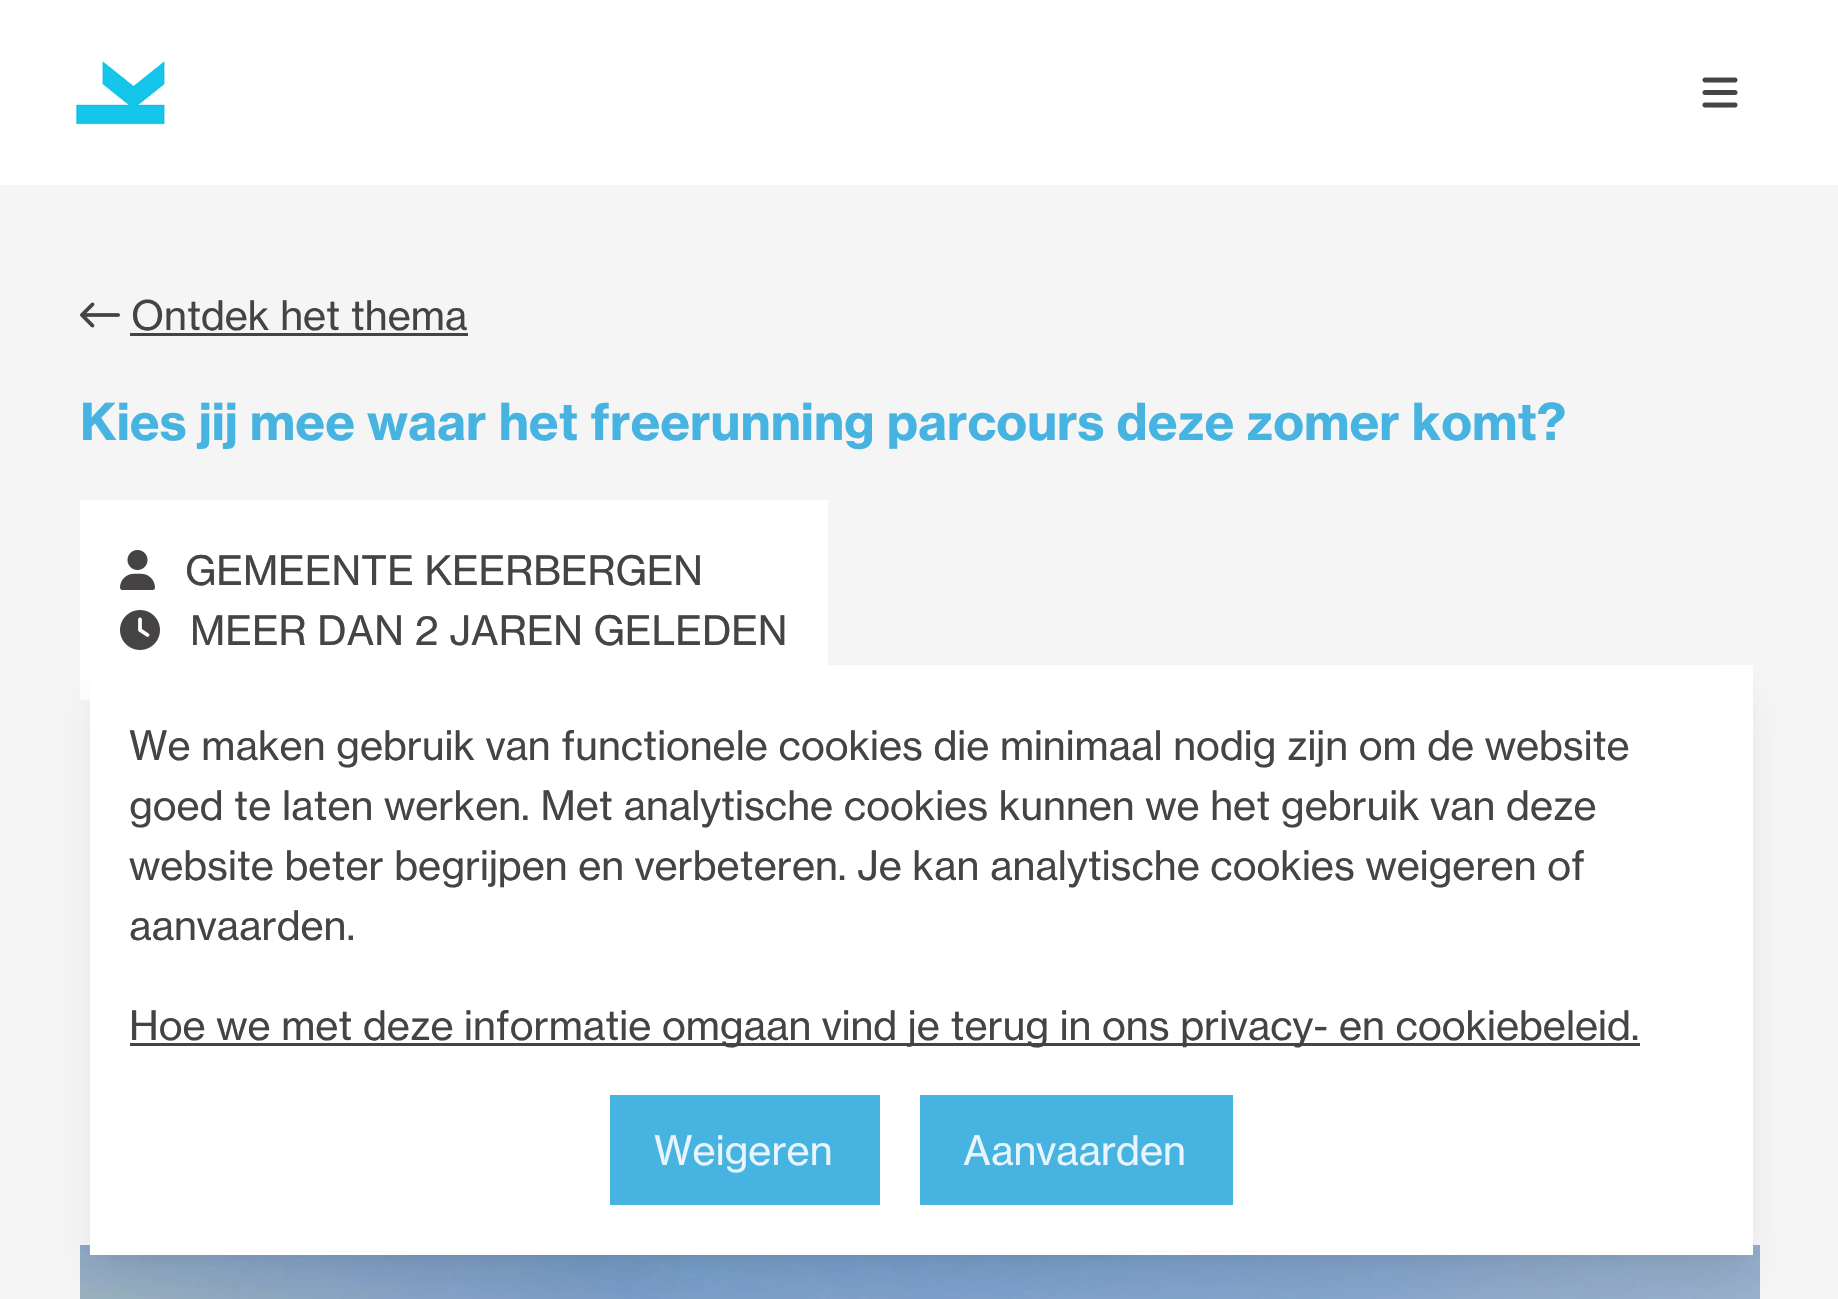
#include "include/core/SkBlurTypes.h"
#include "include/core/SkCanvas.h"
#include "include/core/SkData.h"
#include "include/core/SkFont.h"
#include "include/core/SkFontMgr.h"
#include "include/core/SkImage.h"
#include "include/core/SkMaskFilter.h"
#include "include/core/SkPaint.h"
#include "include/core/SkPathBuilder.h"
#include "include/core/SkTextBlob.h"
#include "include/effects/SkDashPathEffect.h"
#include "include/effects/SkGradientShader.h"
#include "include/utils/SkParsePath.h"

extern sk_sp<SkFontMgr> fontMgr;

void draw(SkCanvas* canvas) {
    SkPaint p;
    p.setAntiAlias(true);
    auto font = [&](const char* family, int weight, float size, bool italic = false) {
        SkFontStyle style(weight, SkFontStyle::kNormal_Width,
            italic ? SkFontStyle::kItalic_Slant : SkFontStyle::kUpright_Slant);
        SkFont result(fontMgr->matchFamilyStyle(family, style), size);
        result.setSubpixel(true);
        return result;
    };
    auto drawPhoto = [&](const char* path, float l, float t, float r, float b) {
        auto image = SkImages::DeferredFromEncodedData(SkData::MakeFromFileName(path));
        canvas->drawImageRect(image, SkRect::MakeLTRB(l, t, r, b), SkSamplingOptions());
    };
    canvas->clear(0xFFF5F5F5);
    p.setColor(0xFFFFFFFF);
    canvas->drawRect(SkRect::MakeLTRB(0, 0, 1838, 185), p);
    drawPhoto("media/1.png", 75, 61, 165, 125);
    drawPhoto("media/2.png", 1702, 77, 1738, 108);
    drawPhoto("media/3.png", 80, 302, 120, 328);
    auto font1 = font("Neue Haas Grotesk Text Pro", 400, 40);
    p.setColor(0xFF464344);
    canvas->drawString("Ontdek het thema", 131, 330, font1, p);
    canvas->drawRect(SkRect::MakeLTRB(130, 333, 468, 336), p);
    auto font2 = font("Neue Haas Grotesk Text Pro", 700, 50);
    p.setColor(0xFF47B3E1);
    canvas->drawString("Kies jij mee waar het freerunning parcours deze zomer komt?", 80, 440, font2, p);
    p.setColor(0xFFFFFFFF);
    canvas->drawRect(SkRect::MakeLTRB(80, 500, 828, 700), p);
    drawPhoto("media/4.png", 120, 550, 155, 590);
    p.setColor(0xFF464344);
    canvas->drawString("GEMEENTE KEERBERGEN", 185, 585, font1, p);
    drawPhoto("media/5.png", 120, 610, 160, 650);
    canvas->drawString("MEER DAN 2 JAREN GELEDEN", 190, 645, font1, p);
    drawPhoto("media/6.png", 80, 1245, 1760, 1299);
    p.setColor(0x1A464344);
    p.setMaskFilter(SkMaskFilter::MakeBlur(kNormal_SkBlurStyle, 7.5f));
    canvas->drawRect(SkRect::MakeLTRB(100, 685, 1743, 1255), p);
    p.setMaskFilter(nullptr);
    p.setMaskFilter(SkMaskFilter::MakeBlur(kNormal_SkBlurStyle, 19));
    canvas->drawRect(SkRect::MakeLTRB(98, 698, 1745, 1273), p);
    p.setMaskFilter(nullptr);
    p.setColor(0xFFFFFFFF);
    canvas->drawRect(SkRect::MakeLTRB(90, 665, 1753, 1255), p);
    p.setColor(0xFF464344);
    {
        const struct { const char* s; float x, y; } items[] = {
            {"We maken gebruik van functionele cookies die minimaal nodig zijn om de website", 129, 760},
            {"goed te laten werken. Met analytische cookies kunnen we het gebruik van deze", 129, 820},
            {"website beter begrijpen en verbeteren. Je kan analytische cookies weigeren of", 129, 880},
            {"aanvaarden.", 129, 940},
        };
        for (auto [s, x, y] : items) {
            canvas->drawString(s, x, y, font1, p);
        }
    }
    canvas->drawRect(SkRect::MakeLTRB(130, 1043, 1640, 1046), p);
    canvas->drawString("Hoe we met deze informatie omgaan vind je terug in ons privacy- en cookiebeleid.", 129, 1040, font1, p);
    p.setColor(0xFF47B3E1);
    canvas->drawRect(SkRect::MakeLTRB(610, 1095, 880, 1205), p);
    p.setColor(0xFFE9F5FC);
    canvas->drawString("Weigeren", 654, 1165, font1, p);
    p.setColor(0xFF47B3E1);
    canvas->drawRect(SkRect::MakeLTRB(920, 1095, 1233, 1205), p);
    p.setColor(0xFFE9F5FC);
    canvas->drawString("Aanvaarden", 963, 1165, font1, p);
}
